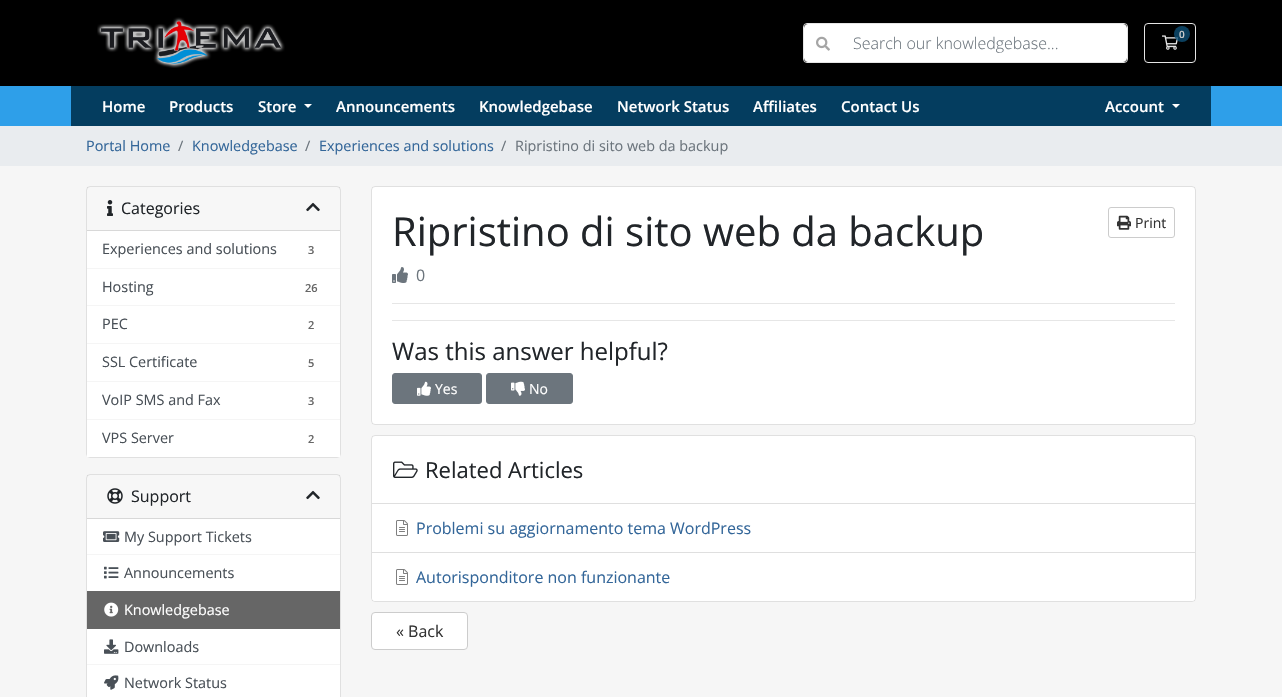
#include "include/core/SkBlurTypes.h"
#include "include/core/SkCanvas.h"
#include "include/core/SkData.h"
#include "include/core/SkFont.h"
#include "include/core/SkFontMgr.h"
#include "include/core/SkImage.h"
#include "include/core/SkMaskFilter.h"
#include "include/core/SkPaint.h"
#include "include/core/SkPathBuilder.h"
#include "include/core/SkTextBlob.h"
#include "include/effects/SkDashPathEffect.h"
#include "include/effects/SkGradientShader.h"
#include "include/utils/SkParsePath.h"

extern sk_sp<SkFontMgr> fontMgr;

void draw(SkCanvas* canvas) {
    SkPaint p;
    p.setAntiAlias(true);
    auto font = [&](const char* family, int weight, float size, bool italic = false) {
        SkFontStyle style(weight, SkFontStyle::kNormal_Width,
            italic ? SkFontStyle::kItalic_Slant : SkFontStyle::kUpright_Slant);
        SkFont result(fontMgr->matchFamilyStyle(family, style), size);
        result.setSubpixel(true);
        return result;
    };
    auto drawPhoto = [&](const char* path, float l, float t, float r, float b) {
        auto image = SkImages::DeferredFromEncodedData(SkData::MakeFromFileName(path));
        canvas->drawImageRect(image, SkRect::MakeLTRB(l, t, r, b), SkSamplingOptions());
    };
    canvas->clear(0xFFF6F6F6);
    p.setColor(0xFF000000);
    canvas->drawRect(SkRect::MakeLTRB(0, 0, 1282, 86), p);
    drawPhoto("media/1.png", 97, 17, 285, 68);
    p.setStyle(SkPaint::kStroke_Style);
    p.setStrokeWidth(1);
    p.setColor(0xFFE5E5E5);
    canvas->drawRoundRect(SkRect::MakeLTRB(1144.5f, 23.5f, 1195.5f, 62.5f), 3.5f, 3.5f, p);
    drawPhoto("media/2.png", 1162, 35, 1179, 50);
    p.setStyle(SkPaint::kFill_Style);
    p.setColor(0xCC0E5077);
    canvas->drawCircle(1182, 34, 8, p);
    auto font1 = font("Open Sans", 600, 10);
    p.setColor(0xFFCCCCCC);
    canvas->drawString("0", 1179, 38, font1, p);
    p.setStyle(SkPaint::kStroke_Style);
    p.setColor(0xFFE5E5E5);
    canvas->drawRoundRect(SkRect::MakeLTRB(803.5f, 23.5f, 1127.5f, 62.5f), 3.5f, 3.5f, p);
    p.setStyle(SkPaint::kFill_Style);
    p.setColor(0xFFFFFFFF);
    canvas->drawPath(SkPathBuilder().moveTo(841, 24).lineTo(1123, 24).cubicTo(1125, 24, 1127, 26, 1127, 28).lineTo(1127, 58).cubicTo(1127, 60, 1125, 62, 1123, 62).lineTo(841, 62).close().detach(), p);
    canvas->drawPath(SkPathBuilder().moveTo(808, 24).lineTo(842, 24).lineTo(842, 62).lineTo(808, 62).cubicTo(806, 62, 804, 60, 804, 58).lineTo(804, 28).cubicTo(804, 26, 806, 24, 808, 24).close().detach(), p);
    drawPhoto("media/3.png", 816, 36, 830, 51);
    auto font2 = font("Open Sans", 300, 16);
    p.setColor(0xFF6C757D);
    canvas->drawString("Search our knowledgebase...", 853, 49, font2, p);
    p.setColor(0xFF2E9FE9);
    canvas->drawRect(SkRect::MakeLTRB(0, 86, 1282, 126), p);
    p.setColor(0xFF043D5F);
    canvas->drawRect(SkRect::MakeLTRB(71, 86, 1211, 126), p);
    auto font3 = font("Open Sans", 600, 15);
    p.setColor(0xFFFFFFFF);
    {
        const struct { const char* s; float x, y; } items[] = {
            {"Home", 102, 112},
            {"Products", 169, 112},
            {"Store", 258, 112},
        };
        for (auto [s, x, y] : items) {
            canvas->drawString(s, x, y, font3, p);
        }
    }
    canvas->drawPath(SkPathBuilder().moveTo(304, 104).lineTo(312, 104).lineTo(308, 108).close().detach(), p);
    {
        const struct { const char* s; float x, y; } items[] = {
            {"Announcements", 336, 112},
            {"Knowledgebase", 479, 112},
            {"Network Status", 617, 112},
            {"Affiliates", 753, 112},
            {"Contact Us", 841, 112},
            {"Account", 1105, 112},
        };
        for (auto [s, x, y] : items) {
            canvas->drawString(s, x, y, font3, p);
        }
    }
    canvas->drawPath(SkPathBuilder().moveTo(1172, 104).lineTo(1180, 104).lineTo(1176, 108).close().detach(), p);
    p.setColor(0xFFE9ECEF);
    canvas->drawRect(SkRect::MakeLTRB(0, 126, 1282, 166), p);
    auto font4 = font("Open Sans", 400, 14.4f);
    p.setColor(0xFF336699);
    canvas->drawString("Portal Home", 86, 151, font4, p);
    p.setColor(0xFF6C757D);
    canvas->drawString("/", 178, 151, font4, p);
    p.setColor(0xFF336699);
    canvas->drawString("Knowledgebase", 192, 151, font4, p);
    p.setColor(0xFF6C757D);
    canvas->drawString("/", 305, 151, font4, p);
    p.setColor(0xFF336699);
    canvas->drawString("Experiences and solutions", 319, 151, font4, p);
    p.setColor(0xFF6C757D);
    canvas->drawString("/", 501, 151, font4, p);
    canvas->drawString("Ripristino di sito web da backup", 515, 151, font4, p);
    p.setColor(0xFFFFFFFF);
    canvas->drawRoundRect(SkRect::MakeLTRB(86, 186, 341, 458), 4, 4, p);
    p.setStyle(SkPaint::kStroke_Style);
    p.setColor(0x1F000000);
    canvas->drawRoundRect(SkRect::MakeLTRB(86.5f, 186.5f, 340.5f, 457.5f), 3.5f, 3.5f, p);
    p.setStyle(SkPaint::kFill_Style);
    p.setColor(0x08000000);
    canvas->drawRect(SkRect::MakeLTRB(87, 187, 340, 230), p);
    p.setColor(0xFFD8D8D8);
    canvas->drawRect(SkRect::MakeLTRB(87, 230, 340, 231), p);
    drawPhoto("media/4.png", 107, 200, 113, 216);
    auto font5 = font("Open Sans", 400, 16);
    p.setColor(0xFF212529);
    canvas->drawString("Categories", 121, 214, font5, p);
    drawPhoto("media/5.png", 306, 202, 320, 212);
    p.setColor(0xFFF5F5F5);
    canvas->drawRect(SkRect::MakeLTRB(87, 268, 340, 269), p);
    p.setColor(0xFF495057);
    canvas->drawString("Experiences and solutions", 102, 254, font4, p);
    auto font6 = font("Open Sans", 600, 11);
    p.setColor(0xFF666666);
    canvas->drawString("3", 308, 254, font6, p);
    p.setColor(0xFFF5F5F5);
    canvas->drawRect(SkRect::MakeLTRB(87, 305, 340, 306), p);
    p.setColor(0xFF495057);
    canvas->drawString("Hosting", 102, 292, font4, p);
    p.setColor(0xFF666666);
    canvas->drawString("26", 305, 292, font6, p);
    p.setColor(0xFFF5F5F5);
    canvas->drawRect(SkRect::MakeLTRB(87, 343, 340, 344), p);
    p.setColor(0xFF495057);
    canvas->drawString("PEC", 102, 329, font4, p);
    p.setColor(0xFF666666);
    canvas->drawString("2", 308, 329, font6, p);
    p.setColor(0xFFF5F5F5);
    canvas->drawRect(SkRect::MakeLTRB(87, 381, 340, 382), p);
    p.setColor(0xFF495057);
    canvas->drawString("SSL Certificate", 102, 367, font4, p);
    p.setColor(0xFF666666);
    canvas->drawString("5", 308, 367, font6, p);
    p.setColor(0xFFF5F5F5);
    canvas->drawRect(SkRect::MakeLTRB(87, 419, 340, 420), p);
    p.setColor(0xFF495057);
    canvas->drawString("VoIP SMS and Fax", 102, 405, font4, p);
    p.setColor(0xFF666666);
    canvas->drawString("3", 308, 405, font6, p);
    p.setColor(0xFFFFFFFF);
    canvas->drawRect(SkRect::MakeLTRB(87, 454, 340, 457), p);
    p.setColor(0xFF495057);
    canvas->drawString("VPS Server", 102, 443, font4, p);
    p.setColor(0xFF666666);
    canvas->drawString("2", 308, 443, font6, p);
    p.setColor(0xFFFFFFFF);
    canvas->drawRoundRect(SkRect::MakeLTRB(86, 474, 341, 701), 4, 4, p);
    p.setStyle(SkPaint::kStroke_Style);
    p.setColor(0x1F000000);
    canvas->drawRoundRect(SkRect::MakeLTRB(86.5f, 474.5f, 340.5f, 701.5f), 3.5f, 3.5f, p);
    p.setStyle(SkPaint::kFill_Style);
    p.setColor(0x08000000);
    canvas->drawRect(SkRect::MakeLTRB(87, 475, 340, 518), p);
    p.setColor(0xFFD8D8D8);
    canvas->drawRect(SkRect::MakeLTRB(87, 518, 340, 519), p);
    drawPhoto("media/6.png", 107, 488, 123, 504);
    p.setColor(0xFF212529);
    canvas->drawString("Support", 131, 502, font5, p);
    drawPhoto("media/5.png", 306, 490, 320, 500);
    p.setColor(0xFFF5F5F5);
    canvas->drawRect(SkRect::MakeLTRB(87, 554, 340, 555), p);
    drawPhoto("media/7.png", 103, 531, 120, 542);
    p.setColor(0xFF495057);
    canvas->drawString("My Support Tickets", 124, 542, font4, p);
    drawPhoto("media/8.png", 104, 566, 119, 579);
    canvas->drawString("Announcements", 124, 578, font4, p);
    p.setColor(0xFF666666);
    canvas->drawRect(SkRect::MakeLTRB(87, 591, 340, 629), p);
    drawPhoto("media/9.png", 104, 602, 119, 617);
    p.setColor(0xFFFFFFFF);
    canvas->drawString("Knowledgebase", 124, 615, font4, p);
    p.setColor(0xFFF5F5F5);
    canvas->drawRect(SkRect::MakeLTRB(87, 664, 340, 665), p);
    drawPhoto("media/10.png", 104, 639, 119, 654);
    p.setColor(0xFF495057);
    canvas->drawString("Downloads", 124, 652, font4, p);
    drawPhoto("media/11.png", 104, 675, 119, 690);
    canvas->drawString("Network Status", 124, 688, font4, p);
    p.setColor(0xFFFFFFFF);
    canvas->drawRoundRect(SkRect::MakeLTRB(371, 186, 1196, 425), 4, 4, p);
    p.setStyle(SkPaint::kStroke_Style);
    p.setColor(0x1F000000);
    canvas->drawRoundRect(SkRect::MakeLTRB(371.5f, 186.5f, 1195.5f, 424.5f), 3.5f, 3.5f, p);
    auto font7 = font("Open Sans", 400, 40);
    p.setStyle(SkPaint::kFill_Style);
    p.setColor(0xFF212529);
    canvas->drawString("Ripristino di sito web da backup", 392, 246, font7, p);
    p.setStyle(SkPaint::kStroke_Style);
    p.setColor(0xFFCCCCCC);
    canvas->drawRoundRect(SkRect::MakeLTRB(1108.5f, 207.5f, 1174.5f, 237.5f), 2.5f, 2.5f, p);
    drawPhoto("media/12.png", 1117, 215, 1131, 230);
    auto font8 = font("Open Sans", 400, 14);
    p.setStyle(SkPaint::kFill_Style);
    p.setColor(0xFF333333);
    canvas->drawString("Print", 1135, 228, font8, p);
    drawPhoto("media/13.png", 392, 267, 408, 283);
    p.setColor(0xFF6C757D);
    canvas->drawString("0", 416, 281, font5, p);
    p.setColor(0xFFE6E6E6);
    canvas->drawRect(SkRect::MakeLTRB(392, 303, 1175, 304), p);
    canvas->drawRect(SkRect::MakeLTRB(392, 320, 1175, 321), p);
    auto font9 = font("Open Sans", 400, 24);
    p.setColor(0xFF212529);
    canvas->drawString("Was this answer helpful?", 392, 360, font9, p);
    p.setColor(0xFF6C757D);
    canvas->drawRoundRect(SkRect::MakeLTRB(392.5f, 373.5f, 481.5f, 403.5f), 2.5f, 2.5f, p);
    p.setStyle(SkPaint::kStroke_Style);
    canvas->drawRoundRect(SkRect::MakeLTRB(392.5f, 373.5f, 481.5f, 403.5f), 2.5f, 2.5f, p);
    drawPhoto("media/14.png", 417, 381, 431, 396);
    p.setStyle(SkPaint::kFill_Style);
    p.setColor(0xFFFFFFFF);
    canvas->drawString("Yes", 435, 394, font8, p);
    p.setColor(0xFF6C757D);
    canvas->drawRoundRect(SkRect::MakeLTRB(486.5f, 373.5f, 572.5f, 403.5f), 2.5f, 2.5f, p);
    p.setStyle(SkPaint::kStroke_Style);
    canvas->drawRoundRect(SkRect::MakeLTRB(486.5f, 373.5f, 572.5f, 403.5f), 2.5f, 2.5f, p);
    drawPhoto("media/15.png", 511, 381, 525, 396);
    p.setStyle(SkPaint::kFill_Style);
    p.setColor(0xFFFFFFFF);
    canvas->drawString("No", 529, 394, font8, p);
    canvas->drawRoundRect(SkRect::MakeLTRB(371, 435, 1196, 602), 4, 4, p);
    p.setStyle(SkPaint::kStroke_Style);
    p.setColor(0x1F000000);
    canvas->drawRoundRect(SkRect::MakeLTRB(371.5f, 435.5f, 1195.5f, 601.5f), 3.5f, 3.5f, p);
    drawPhoto("media/16.png", 393, 461, 418, 478);
    auto font10 = font("Open Sans", 400, 22);
    p.setStyle(SkPaint::kFill_Style);
    p.setColor(0xFF212529);
    canvas->drawString("Related Articles", 425, 478, font10, p);
    p.setColor(0xFFDFDFDF);
    canvas->drawRect(SkRect::MakeLTRB(372, 503, 1195, 504), p);
    canvas->drawRect(SkRect::MakeLTRB(372, 552, 1195, 553), p);
    drawPhoto("media/17.png", 396, 520, 408, 536);
    p.setColor(0xFF336699);
    canvas->drawString("Problemi su aggiornamento tema WordPress", 416, 534, font5, p);
    p.setColor(0xFFFFFFFF);
    canvas->drawPath(SkPathBuilder().moveTo(372, 553).lineTo(1195, 553).lineTo(1195, 598).cubicTo(1195, 599.5f, 1193.5f, 601, 1192, 601).lineTo(375, 601).cubicTo(373.5f, 601, 372, 599.5f, 372, 598).close().detach(), p);
    drawPhoto("media/17.png", 396, 569, 408, 585);
    p.setColor(0xFF336699);
    canvas->drawString("Autorisponditore non funzionante", 416, 583, font5, p);
    p.setColor(0xFFFFFFFF);
    canvas->drawRoundRect(SkRect::MakeLTRB(371.5f, 612.5f, 467.5f, 649.5f), 3.5f, 3.5f, p);
    p.setStyle(SkPaint::kStroke_Style);
    p.setColor(0xFFCCCCCC);
    canvas->drawRoundRect(SkRect::MakeLTRB(371.5f, 612.5f, 467.5f, 649.5f), 3.5f, 3.5f, p);
    p.setStyle(SkPaint::kFill_Style);
    p.setColor(0xFF333333);
    canvas->drawString("« Back", 396, 637, font5, p);
}
